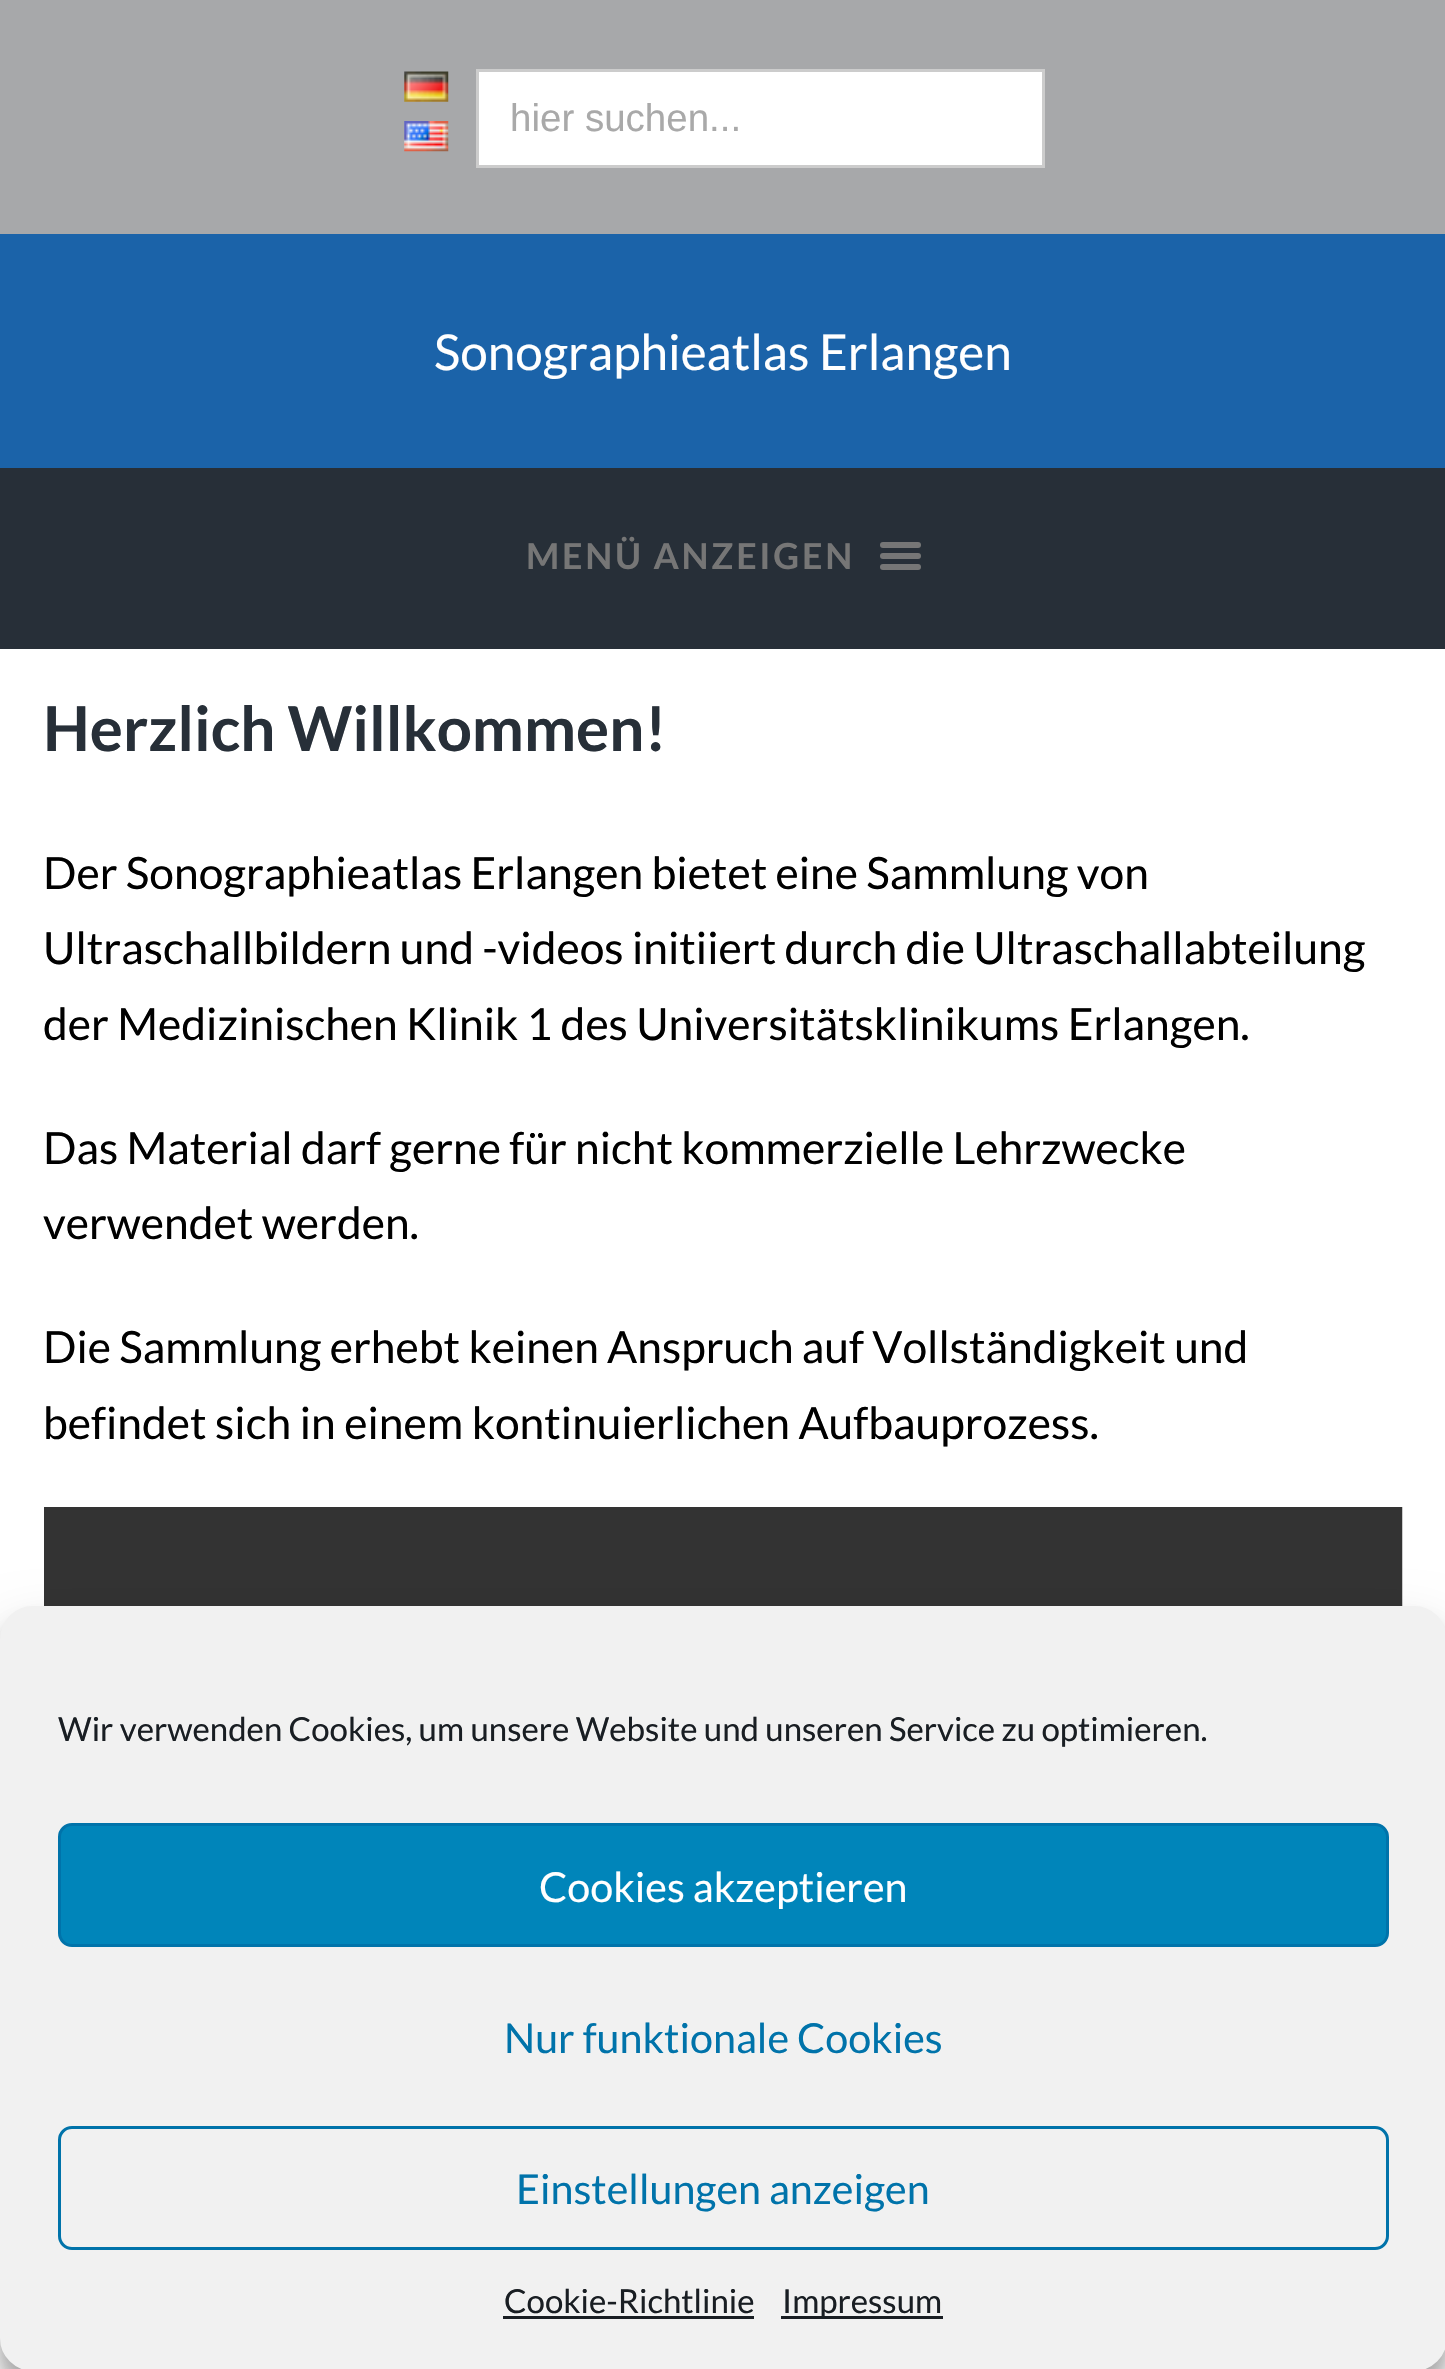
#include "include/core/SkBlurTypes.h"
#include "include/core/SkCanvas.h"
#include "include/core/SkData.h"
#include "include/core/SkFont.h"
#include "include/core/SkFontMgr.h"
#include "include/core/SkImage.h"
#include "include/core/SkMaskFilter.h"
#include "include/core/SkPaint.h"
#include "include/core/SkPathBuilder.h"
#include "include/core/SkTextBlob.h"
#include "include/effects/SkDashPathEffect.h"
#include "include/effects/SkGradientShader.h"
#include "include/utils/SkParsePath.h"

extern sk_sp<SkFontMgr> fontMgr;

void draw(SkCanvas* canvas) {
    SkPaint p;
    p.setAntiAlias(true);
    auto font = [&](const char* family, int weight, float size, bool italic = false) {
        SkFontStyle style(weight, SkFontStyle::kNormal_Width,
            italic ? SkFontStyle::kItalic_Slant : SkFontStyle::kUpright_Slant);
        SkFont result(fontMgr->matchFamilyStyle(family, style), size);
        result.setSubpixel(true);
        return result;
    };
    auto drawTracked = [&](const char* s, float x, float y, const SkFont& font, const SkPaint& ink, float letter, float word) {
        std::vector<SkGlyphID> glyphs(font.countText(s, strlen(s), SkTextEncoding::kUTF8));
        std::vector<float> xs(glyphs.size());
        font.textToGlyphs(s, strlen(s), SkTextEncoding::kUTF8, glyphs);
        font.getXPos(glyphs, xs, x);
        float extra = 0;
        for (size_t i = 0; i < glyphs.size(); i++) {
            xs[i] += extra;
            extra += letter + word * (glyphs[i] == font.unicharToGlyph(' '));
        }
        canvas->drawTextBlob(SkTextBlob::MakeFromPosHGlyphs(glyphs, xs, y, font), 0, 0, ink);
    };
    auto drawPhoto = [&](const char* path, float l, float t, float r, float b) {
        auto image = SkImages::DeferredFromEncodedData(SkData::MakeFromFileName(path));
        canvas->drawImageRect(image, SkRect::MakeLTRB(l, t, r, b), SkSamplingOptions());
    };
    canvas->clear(0xFFFFFFFF);
    p.setColor(0xFFA7A8AA);
    canvas->drawRect(SkRect::MakeLTRB(0, 0, 1445, 234), p);
    drawPhoto("media/1.png", 404, 71, 449, 102);
    drawPhoto("media/2.png", 404, 121, 449, 152);
    p.setColor(0xFFFFFFFF);
    canvas->drawRect(SkRect::MakeLTRB(477.5f, 70.5f, 1043.5f, 166.5f), p);
    p.setStyle(SkPaint::kStroke_Style);
    p.setStrokeWidth(3);
    p.setColor(0xFFCCCCCC);
    canvas->drawRect(SkRect::MakeLTRB(477.5f, 70.5f, 1043.5f, 166.5f), p);
    auto font1 = font("Liberation Sans", 400, 38.5f);
    p.setStyle(SkPaint::kFill_Style);
    p.setColor(0xFFA9A9A9);
    canvas->drawString("hier suchen...", 510, 131, font1, p);
    p.setColor(0xFF1B63A9);
    canvas->drawRect(SkRect::MakeLTRB(0, 234, 1445, 468), p);
    auto font2 = font("Lato", 400, 49.5f);
    p.setColor(0xFFFFFFFF);
    canvas->drawString("Sonographieatlas Erlangen", 434, 370, font2, p);
    p.setColor(0xFF272F38);
    canvas->drawRect(SkRect::MakeLTRB(0, 468, 1445, 649), p);
    auto font3 = font("Lato", 700, 35.75f);
    p.setColor(0xFF767676);
    drawTracked("MENÜ ANZEIGEN", 526, 569, font3, p, 2.75f, 0);
    canvas->drawRoundRect(SkRect::MakeLTRB(880, 542, 921, 548), 3, 3, p);
    canvas->drawRoundRect(SkRect::MakeLTRB(880, 553, 921, 559), 3, 3, p);
    canvas->drawRoundRect(SkRect::MakeLTRB(880, 564, 921, 570), 3, 3, p);
    auto font4 = font("Lato", 700, 61.9f);
    p.setColor(0xFF272F38);
    canvas->drawString("Herzlich Willkommen!", 43, 751, font4, p);
    auto font5 = font("Lato", 400, 44.35f);
    p.setColor(0xFF000000);
    {
        const struct { const char* s; float x, y; } items[] = {
            {"Der Sonographieatlas Erlangen bietet eine Sammlung von", 43, 889},
            {"Ultraschallbildern und -videos initiiert durch die Ultraschallabteilung", 43, 964},
            {"der Medizinischen Klinik 1 des Universitätsklinikums Erlangen.", 43, 1040},
            {"Das Material darf gerne für nicht kommerzielle Lehrzwecke", 43, 1164},
        };
        for (auto [s, x, y] : items) {
            drawTracked(s, x, y, font5, p, 0, -0.25f);
        }
    }
    canvas->drawString("verwendet werden.", 43, 1239, font5, p);
    drawTracked("Die Sammlung erhebt keinen Anspruch auf Vollständigkeit und", 43, 1363, font5, p, 0, -0.25f);
    canvas->drawString("befindet sich in einem kontinuierlichen Aufbauprozess.", 43, 1439, font5, p);
    drawPhoto("media/3.png", 44, 1507, 1403, 1606);
    p.setColor(0x3B000000);
    p.setMaskFilter(SkMaskFilter::MakeBlur(kNormal_SkBlurStyle, 8));
    canvas->drawRoundRect(SkRect::MakeLTRB(0, 1623, 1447, 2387), 33, 33, p);
    p.setMaskFilter(nullptr);
    p.setColor(0x30000000);
    p.setMaskFilter(SkMaskFilter::MakeBlur(kNormal_SkBlurStyle, 27.5f));
    canvas->drawRoundRect(SkRect::MakeLTRB(0, 1634, 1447, 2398), 33, 33, p);
    p.setMaskFilter(nullptr);
    p.setColor(0xFFF1F1F1);
    canvas->drawRoundRect(SkRect::MakeLTRB(1.5f, 1607.5f, 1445.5f, 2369.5f), 31.5f, 31.5f, p);
    p.setStyle(SkPaint::kStroke_Style);
    canvas->drawRoundRect(SkRect::MakeLTRB(1.5f, 1607.5f, 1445.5f, 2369.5f), 31.5f, 31.5f, p);
    auto font6 = font("Lato", 400, 33);
    p.setStyle(SkPaint::kFill_Style);
    p.setColor(0xFF191E23);
    canvas->drawString("Wir verwenden Cookies, um unsere Website und unseren Service zu optimieren.", 58, 1741, font6, p);
    p.setColor(0xFF0085BA);
    canvas->drawRoundRect(SkRect::MakeLTRB(59.5f, 1824.5f, 1387.5f, 1945.5f), 12.5f, 12.5f, p);
    p.setStyle(SkPaint::kStroke_Style);
    p.setColor(0xFF0073AA);
    canvas->drawRoundRect(SkRect::MakeLTRB(59.5f, 1824.5f, 1387.5f, 1945.5f), 12.5f, 12.5f, p);
    auto font7 = font("Lato", 400, 41.25f);
    p.setStyle(SkPaint::kFill_Style);
    p.setColor(0xFFFFFFFF);
    canvas->drawString("Cookies akzeptieren", 539, 1902, font7, p);
    p.setColor(0xFF0073AA);
    canvas->drawString("Nur funktionale Cookies", 504, 2053, font7, p);
    p.setStyle(SkPaint::kStroke_Style);
    canvas->drawRoundRect(SkRect::MakeLTRB(59.5f, 2127.5f, 1387.5f, 2248.5f), 12.5f, 12.5f, p);
    p.setStyle(SkPaint::kFill_Style);
    canvas->drawString("Einstellungen anzeigen", 516, 2204, font7, p);
    p.setColor(0xFF191E23);
    canvas->drawString("Cookie-Richtlinie", 504, 2313, font6, p);
    canvas->drawRect(SkRect::MakeLTRB(503, 2316, 754, 2319), p);
    canvas->drawRect(SkRect::MakeLTRB(781, 2316, 943, 2319), p);
    canvas->drawString("Impressum", 782, 2313, font6, p);
}
